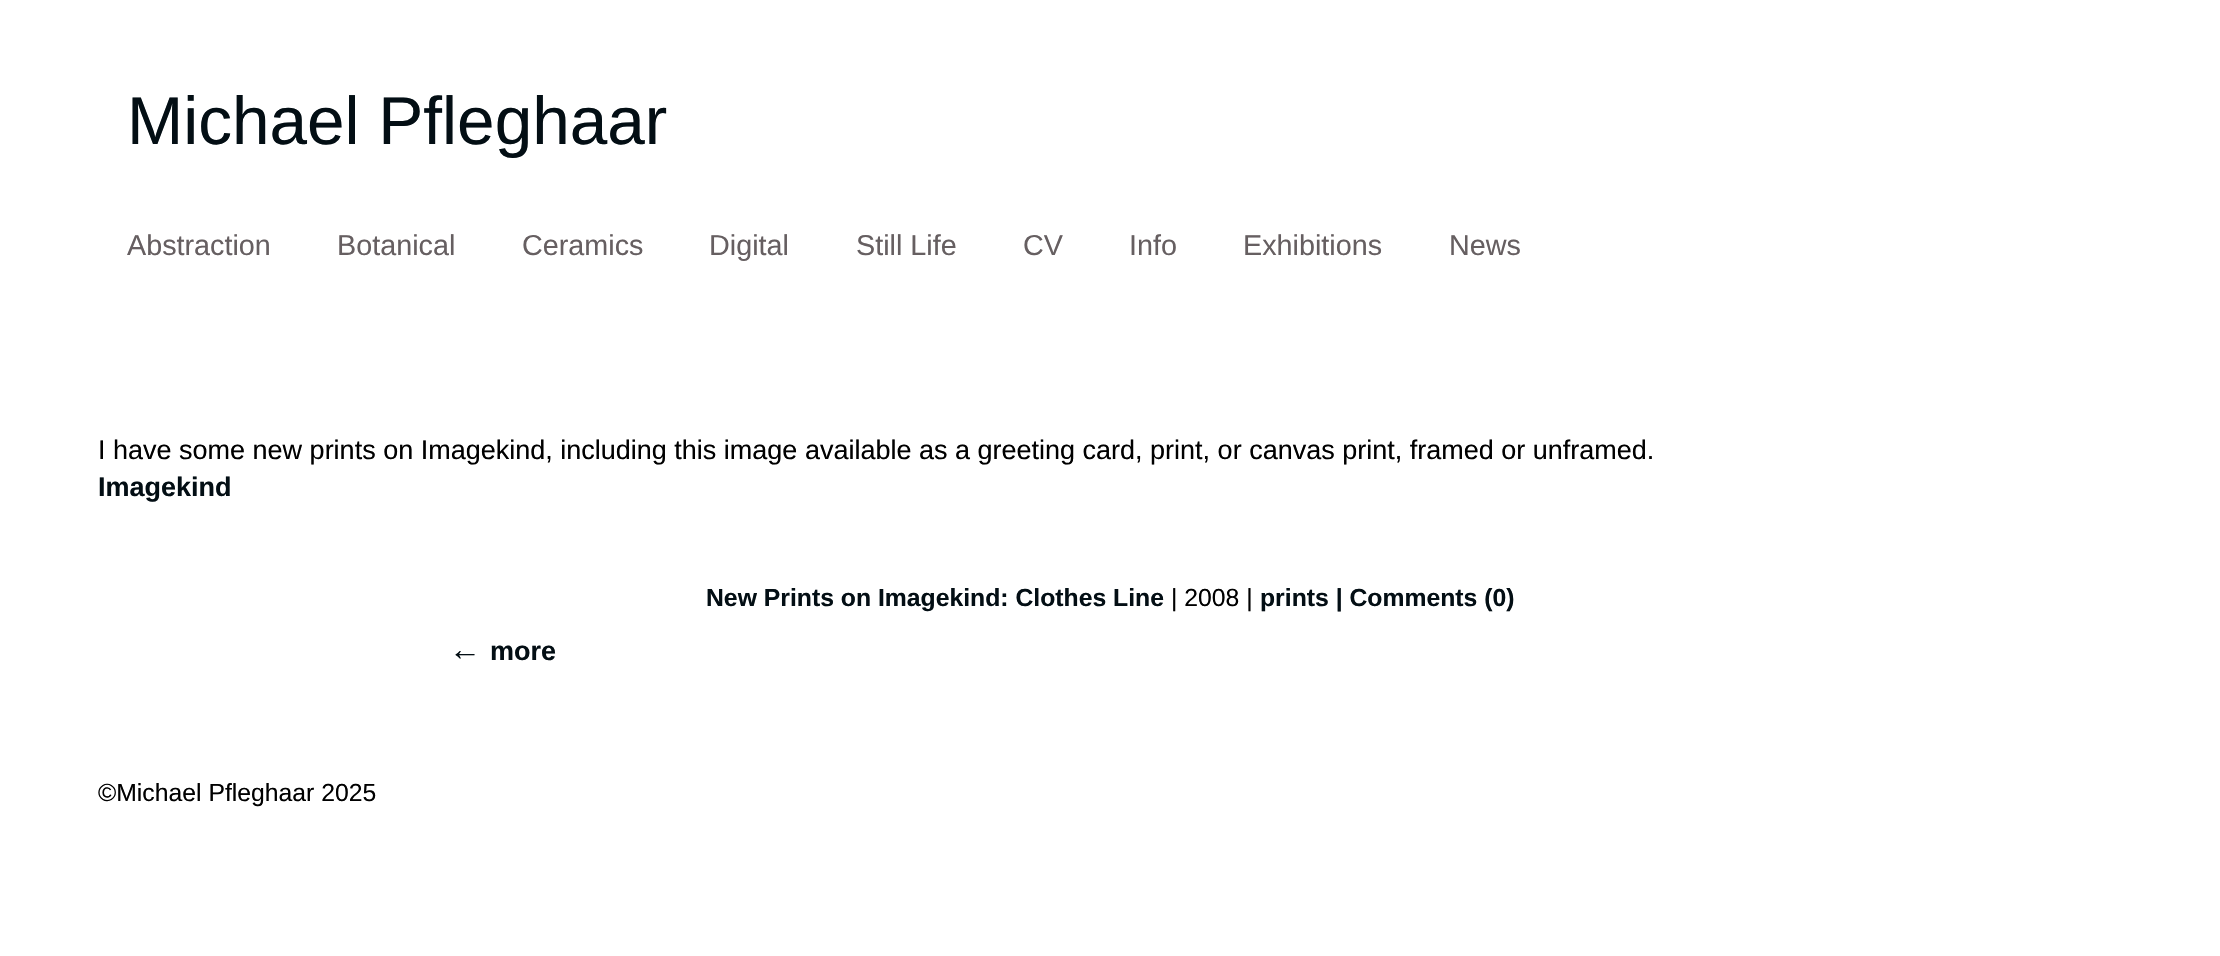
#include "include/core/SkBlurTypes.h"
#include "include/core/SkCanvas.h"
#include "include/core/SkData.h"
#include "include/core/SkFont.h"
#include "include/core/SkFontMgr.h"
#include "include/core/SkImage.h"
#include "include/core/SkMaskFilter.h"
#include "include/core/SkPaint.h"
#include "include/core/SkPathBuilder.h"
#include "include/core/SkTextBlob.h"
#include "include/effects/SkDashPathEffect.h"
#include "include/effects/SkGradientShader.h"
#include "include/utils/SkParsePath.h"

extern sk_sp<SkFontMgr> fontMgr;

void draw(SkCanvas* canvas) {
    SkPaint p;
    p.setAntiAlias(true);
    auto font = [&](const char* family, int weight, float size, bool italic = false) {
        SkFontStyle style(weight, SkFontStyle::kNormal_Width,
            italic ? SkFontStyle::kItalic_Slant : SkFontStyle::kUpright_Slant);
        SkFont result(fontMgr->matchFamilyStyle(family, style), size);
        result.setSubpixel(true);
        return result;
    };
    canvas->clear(0xFFFFFFFF);
    auto font1 = font("Liberation Sans", 400, 67.5f);
    p.setColor(0xFF030E14);
    canvas->drawString("Michael Pfleghaar", 127, 144, font1, p);
    auto font2 = font("Liberation Sans", 400, 28.75f);
    p.setColor(0xFF665F61);
    {
        const struct { const char* s; float x, y; } items[] = {
            {"Abstraction", 127, 255},
            {"Botanical", 337, 255},
            {"Ceramics", 522, 255},
            {"Digital", 709, 255},
            {"Still Life", 856, 255},
            {"CV", 1023, 255},
            {"Info", 1129, 255},
            {"Exhibitions", 1243, 255},
            {"News", 1449, 255},
        };
        for (auto [s, x, y] : items) {
            canvas->drawString(s, x, y, font2, p);
        }
    }
    auto font3 = font("Liberation Sans", 400, 27);
    p.setColor(0xFF000000);
    canvas->drawString("I have some new prints on Imagekind, including this image available as a greeting card, print, or canvas print, framed or unframed.", 98, 459, font3, p);
    auto font4 = font("Liberation Sans", 700, 27);
    p.setColor(0xFF030E14);
    canvas->drawString("Imagekind", 98, 496, font4, p);
    auto font5 = font("Liberation Sans", 700, 24.75f);
    canvas->drawString("New Prints on Imagekind: Clothes Line", 706, 606, font5, p);
    auto font6 = font("Liberation Sans", 400, 24.75f);
    p.setColor(0xFF000000);
    canvas->drawString("| 2008 |", 1171, 606, font6, p);
    p.setColor(0xFF030E14);
    canvas->drawString("prints | Comments (0)", 1260, 606, font5, p);
    auto font7 = font("Liberation Sans", 700, 32);
    canvas->drawString("←", 449, 660, font7, p);
    canvas->drawString("more", 490, 660, font4, p);
    p.setColor(0xFF000000);
    canvas->drawString("©Michael Pfleghaar 2025", 98, 801, font6, p);
}
